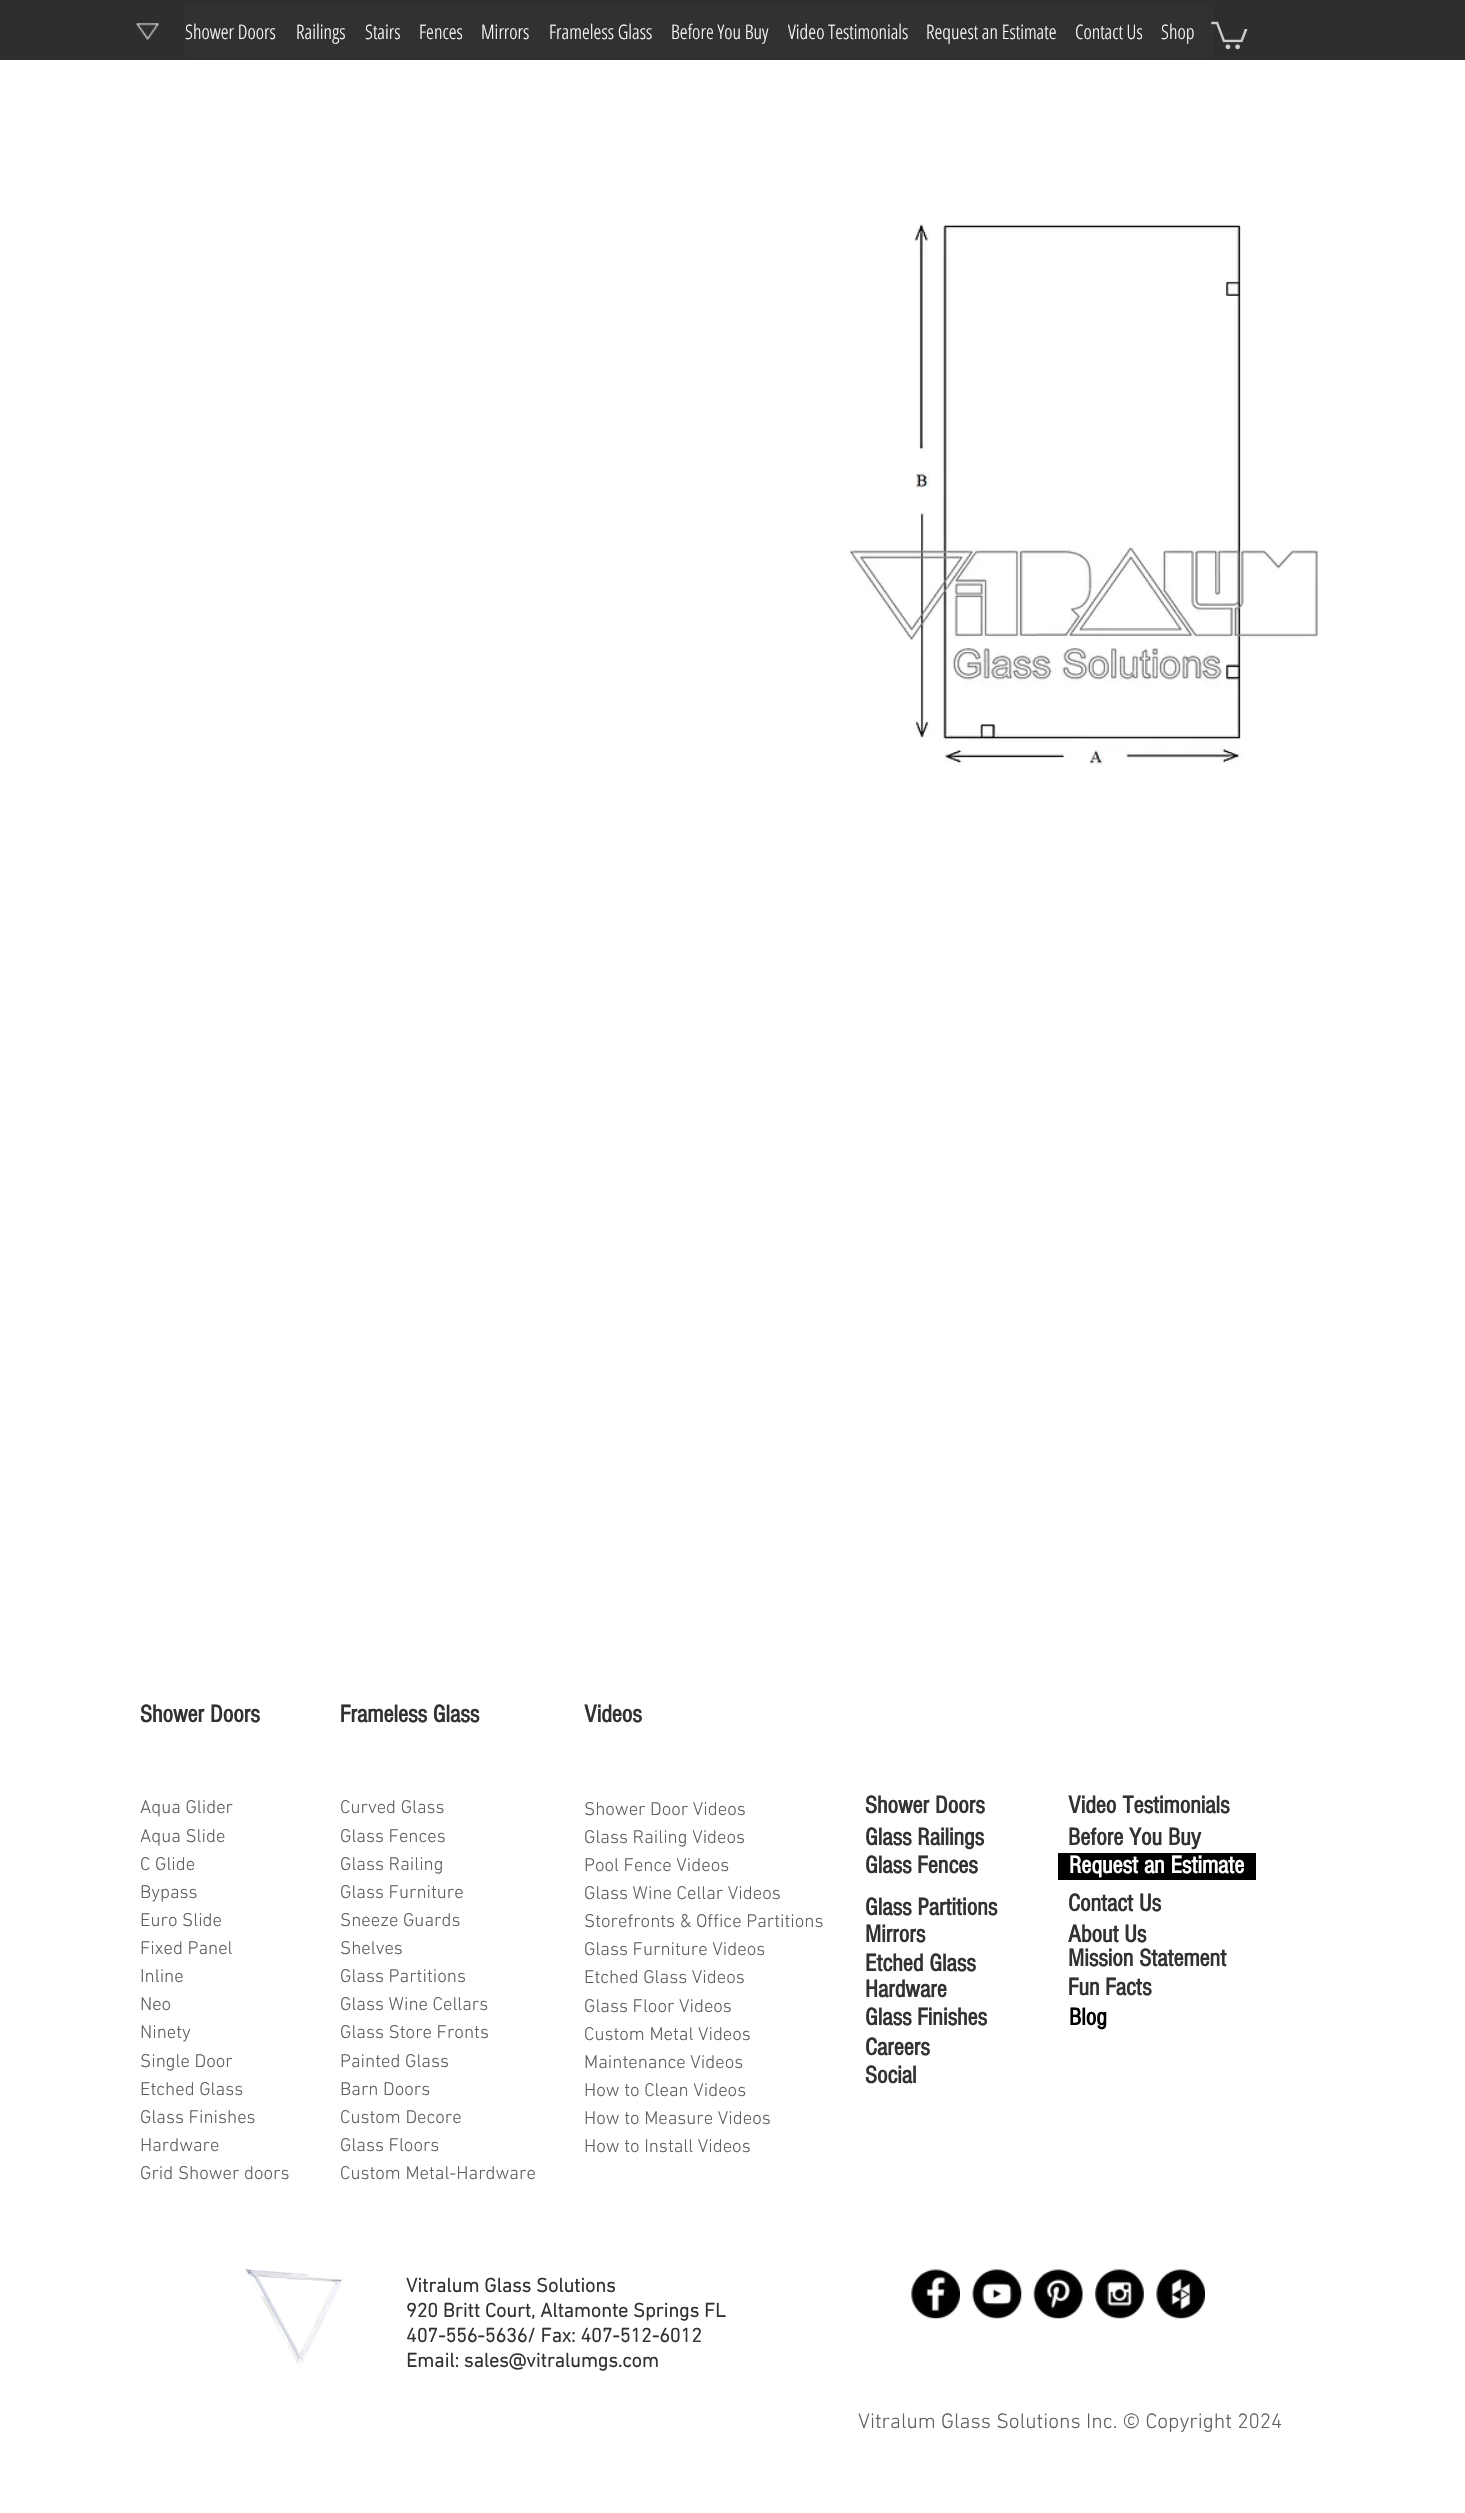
#include "include/core/SkBlurTypes.h"
#include "include/core/SkCanvas.h"
#include "include/core/SkData.h"
#include "include/core/SkFont.h"
#include "include/core/SkFontMgr.h"
#include "include/core/SkImage.h"
#include "include/core/SkMaskFilter.h"
#include "include/core/SkPaint.h"
#include "include/core/SkPathBuilder.h"
#include "include/core/SkTextBlob.h"
#include "include/effects/SkDashPathEffect.h"
#include "include/effects/SkGradientShader.h"
#include "include/utils/SkParsePath.h"

extern sk_sp<SkFontMgr> fontMgr;

void draw(SkCanvas* canvas) {
    SkPaint p;
    p.setAntiAlias(true);
    auto font = [&](const char* family, int weight, float size, bool italic = false) {
        SkFontStyle style(weight, SkFontStyle::kNormal_Width,
            italic ? SkFontStyle::kItalic_Slant : SkFontStyle::kUpright_Slant);
        SkFont result(fontMgr->matchFamilyStyle(family, style), size);
        result.setSubpixel(true);
        return result;
    };
    auto drawPhoto = [&](const char* path, float l, float t, float r, float b) {
        auto image = SkImages::DeferredFromEncodedData(SkData::MakeFromFileName(path));
        canvas->drawImageRect(image, SkRect::MakeLTRB(l, t, r, b), SkSamplingOptions());
    };
    canvas->clear(0xFFFFFFFF);
    p.setColor(0xFF2F2E2E);
    canvas->drawRect(SkRect::MakeLTRB(0, 0, 1465, 60), p);
    drawPhoto("media/1.png", 136, 23, 159, 40);
    p.setColor(0xFF313131);
    canvas->drawRect(SkRect::MakeLTRB(185, 6, 1214, 58), p);
    auto font1 = font("Open Sans Condensed", 300, 20);
    p.setColor(0xFFFFFFFF);
    {
        const struct { const char* s; float x, y; } items[] = {
            {"Shower Doors", 185, 39},
            {"Railings", 296, 39},
            {"Stairs", 365, 39},
            {"Fences", 419, 39},
            {"Mirrors", 481, 39},
            {"Frameless Glass", 549, 39},
            {"Before You Buy", 671, 39},
            {"Video Testimonials", 788, 39},
            {"Request an Estimate", 926, 39},
            {"Contact Us", 1075, 39},
            {"Shop", 1161, 39},
        };
        for (auto [s, x, y] : items) {
            canvas->drawString(s, x, y, font1, p);
        }
    }
    drawPhoto("media/2.png", 1211, 21, 1248, 50);
    drawPhoto("media/3.png", 849, 222, 1320, 767);
    auto font2 = font("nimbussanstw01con", 700, 25);
    p.setColor(0xFF323232);
    {
        const struct { const char* s; float x, y; } items[] = {
            {"Shower Doors", 140, 1722},
            {"Frameless Glass", 340, 1722},
            {"Videos", 584, 1722},
        };
        for (auto [s, x, y] : items) {
            canvas->drawString(s, x, y, font2, p);
        }
    }
    auto font3 = font("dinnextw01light", 300, 18.75f);
    p.setColor(0xFF605E5E);
    {
        const struct { const char* s; float x, y; } items[] = {
            {"Aqua Glider", 140, 1813},
            {"Aqua Slide", 140, 1842},
            {"C Glide", 140, 1870},
            {"Bypass", 140, 1898},
            {"Euro Slide", 140, 1926},
            {"Fixed Panel", 140, 1954},
            {"Inline", 140, 1982},
            {"Neo", 140, 2010},
            {"Ninety", 140, 2038},
            {"Single Door", 140, 2067},
            {"Etched Glass", 140, 2095},
            {"Glass Finishes", 140, 2123},
            {"Hardware", 140, 2151},
            {"Grid Shower doors", 140, 2179},
            {"Curved Glass", 340, 1813},
            {"Glass Fences", 340, 1842},
            {"Glass Railing", 340, 1870},
            {"Glass Furniture", 340, 1898},
            {"Sneeze Guards", 340, 1926},
            {"Shelves", 340, 1954},
            {"Glass Partitions", 340, 1982},
            {"Glass Wine Cellars", 340, 2010},
            {"Glass Store Fronts", 340, 2038},
            {"Painted Glass", 340, 2067},
            {"Barn Doors", 340, 2095},
            {"Custom Decore", 340, 2123},
            {"Glass Floors", 340, 2151},
            {"Custom Metal-Hardware", 340, 2179},
            {"Shower Door Videos", 584, 1815},
            {"Glass Railing Videos", 584, 1843},
            {"Pool Fence Videos", 584, 1871},
            {"Glass Wine Cellar Videos", 584, 1899},
            {"Storefronts & Office Partitions", 584, 1927},
            {"Glass Furniture Videos", 584, 1955},
            {"Etched Glass Videos", 584, 1983},
            {"Glass Floor Videos", 584, 2012},
            {"Custom Metal Videos", 584, 2040},
            {"Maintenance Videos", 584, 2068},
            {"How to Clean Videos", 584, 2096},
            {"How to Measure Videos", 584, 2124},
            {"How to Install Videos", 584, 2152},
        };
        for (auto [s, x, y] : items) {
            canvas->drawString(s, x, y, font3, p);
        }
    }
    p.setColor(0xFF323232);
    {
        const struct { const char* s; float x, y; } items[] = {
            {"Shower Doors", 865, 1813},
            {"Video Testimonials", 1068, 1813},
            {"Glass Railings", 865, 1845},
            {"Before You Buy", 1068, 1845},
            {"Glass Fences", 865, 1873},
        };
        for (auto [s, x, y] : items) {
            canvas->drawString(s, x, y, font2, p);
        }
    }
    p.setColor(0xFF000000);
    canvas->drawRect(SkRect::MakeLTRB(1058, 1853, 1256, 1880), p);
    p.setColor(0xFFFFFFFF);
    canvas->drawString("Request an Estimate", 1069, 1873, font2, p);
    p.setColor(0xFF323232);
    {
        const struct { const char* s; float x, y; } items[] = {
            {"Glass Partitions", 865, 1915},
            {"Contact Us", 1068, 1911},
            {"Mirrors", 865, 1942},
            {"About Us", 1068, 1942},
            {"Etched Glass", 865, 1971},
            {"Mission Statement", 1068, 1966},
            {"Hardware", 865, 1997},
            {"Fun Facts", 1068, 1995},
            {"Glass Finishes", 865, 2025},
        };
        for (auto [s, x, y] : items) {
            canvas->drawString(s, x, y, font2, p);
        }
    }
    p.setColor(0xFF000000);
    canvas->drawString("Blog", 1069, 2025, font2, p);
    p.setColor(0xFF323232);
    canvas->drawString("Careers", 865, 2055, font2, p);
    canvas->drawString("Social", 865, 2083, font2, p);
    drawPhoto("media/4.png", 245, 2269, 344, 2368);
    auto font4 = font("dinnextw01light", 700, 20);
    {
        const struct { const char* s; float x, y; } items[] = {
            {"Vitralum Glass Solutions", 406, 2292},
            {"920 Britt Court, Altamonte Springs FL", 406, 2317},
            {"407-556-5636/ Fax: 407-512-6012", 406, 2342},
            {"Email: sales@vitralumgs.com", 406, 2367},
        };
        for (auto [s, x, y] : items) {
            canvas->drawString(s, x, y, font4, p);
        }
    }
    drawPhoto("media/5.png", 911, 2269, 960, 2319);
    drawPhoto("media/6.png", 972, 2269, 1022, 2319);
    drawPhoto("media/7.png", 1033, 2269, 1083, 2319);
    drawPhoto("media/8.png", 1095, 2269, 1144, 2319);
    drawPhoto("media/9.png", 1156, 2269, 1205, 2319);
    auto font5 = font("dinnextw01light", 300, 21.25f);
    p.setColor(0xFF605E5E);
    canvas->drawString("Vitralum Glass Solutions Inc. © Copyright 2024", 858, 2428, font5, p);
}
